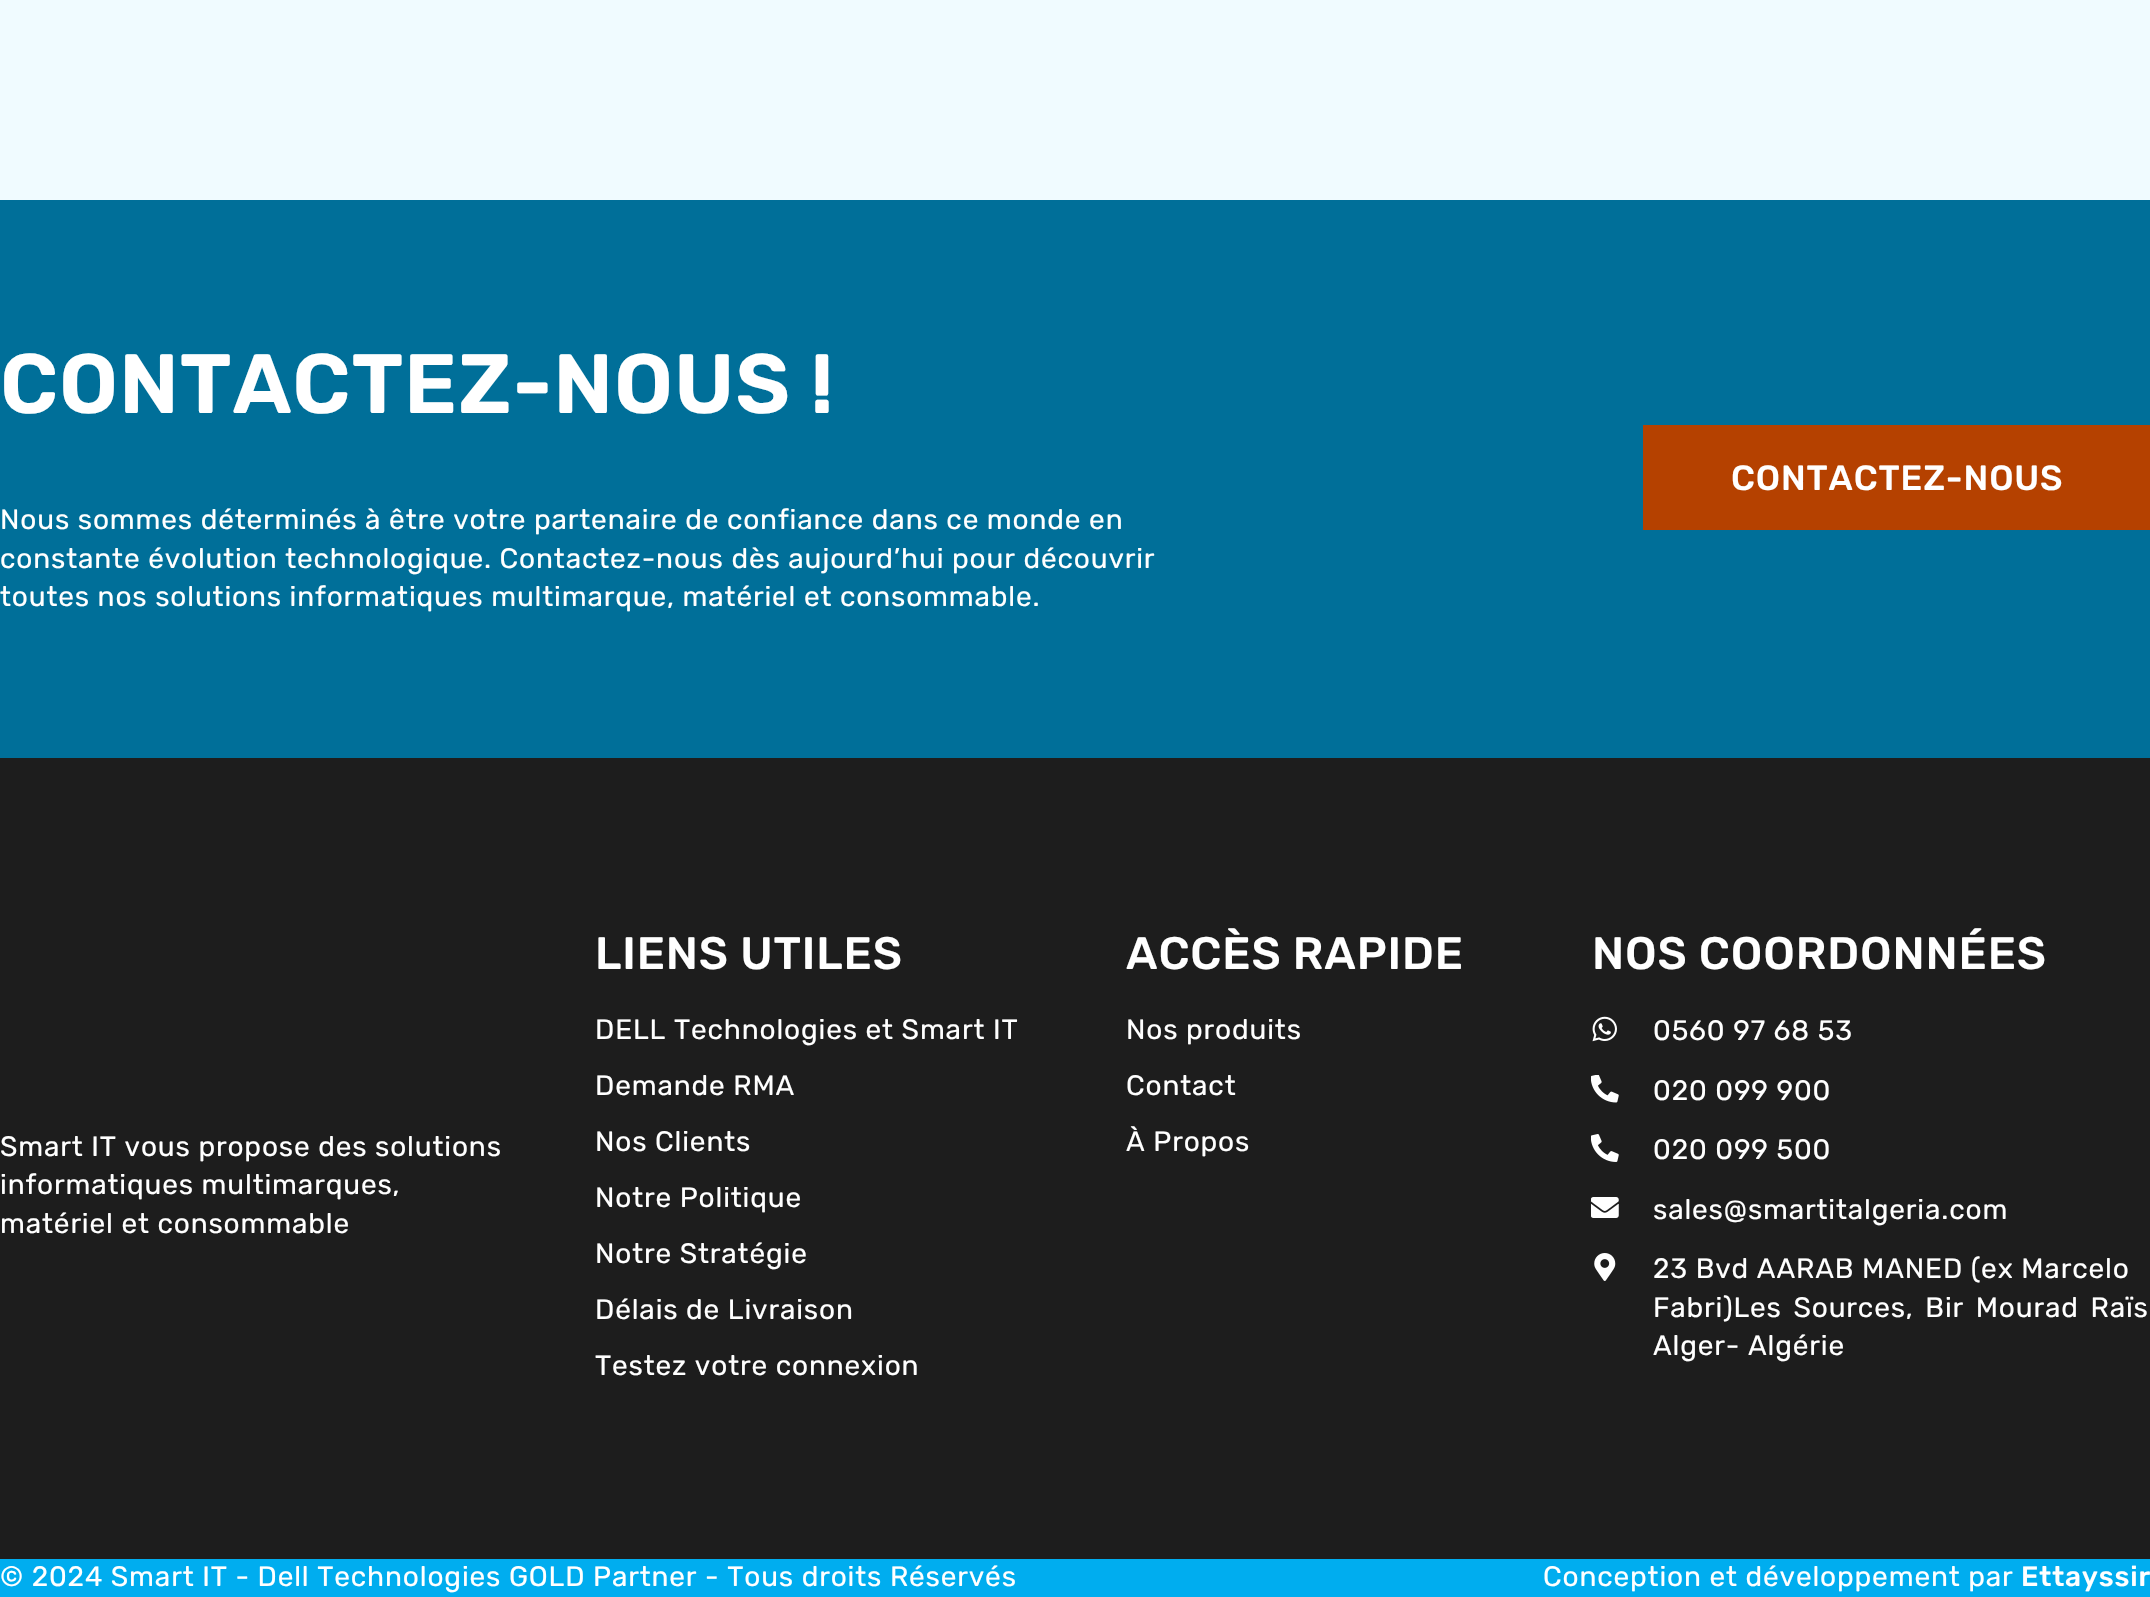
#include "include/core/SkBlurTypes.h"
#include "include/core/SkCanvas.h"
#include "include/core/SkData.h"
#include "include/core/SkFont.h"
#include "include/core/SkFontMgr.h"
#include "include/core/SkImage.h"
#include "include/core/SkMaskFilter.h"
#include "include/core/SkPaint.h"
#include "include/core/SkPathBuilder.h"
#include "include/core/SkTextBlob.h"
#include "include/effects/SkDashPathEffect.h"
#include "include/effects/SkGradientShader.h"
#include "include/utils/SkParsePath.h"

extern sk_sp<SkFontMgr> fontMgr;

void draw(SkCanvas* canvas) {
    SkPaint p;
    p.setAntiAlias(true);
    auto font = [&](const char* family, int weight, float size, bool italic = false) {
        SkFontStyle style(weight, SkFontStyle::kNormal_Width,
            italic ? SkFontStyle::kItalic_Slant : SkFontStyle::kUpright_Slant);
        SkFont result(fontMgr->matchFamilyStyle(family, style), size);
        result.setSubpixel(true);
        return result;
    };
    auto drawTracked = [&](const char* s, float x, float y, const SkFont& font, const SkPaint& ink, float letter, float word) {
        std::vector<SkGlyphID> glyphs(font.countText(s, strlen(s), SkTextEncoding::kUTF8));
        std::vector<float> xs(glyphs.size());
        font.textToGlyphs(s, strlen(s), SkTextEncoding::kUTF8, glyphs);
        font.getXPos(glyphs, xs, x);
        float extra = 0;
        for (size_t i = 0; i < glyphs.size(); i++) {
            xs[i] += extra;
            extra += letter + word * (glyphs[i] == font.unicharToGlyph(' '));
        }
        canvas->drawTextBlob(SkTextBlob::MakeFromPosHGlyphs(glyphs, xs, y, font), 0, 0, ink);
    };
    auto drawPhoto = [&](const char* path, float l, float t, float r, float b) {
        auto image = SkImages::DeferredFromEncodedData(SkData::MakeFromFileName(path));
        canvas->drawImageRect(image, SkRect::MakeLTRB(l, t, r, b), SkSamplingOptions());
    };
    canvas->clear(0xFFF0FBFF);
    p.setColor(0xFF006F99);
    canvas->drawRect(SkRect::MakeLTRB(0, 200, 2150, 758), p);
    auto font1 = font("Rubik", 600, 84);
    p.setColor(0xFFFFFFFF);
    drawTracked("CONTACTEZ-NOUS !", 0, 413, font1, p, 0.85f, 0);
    auto font2 = font("Rubik", 400, 28);
    {
        const struct { const char* s; float x, y; } items[] = {
            {"Nous sommes déterminés à être votre partenaire de confiance dans ce monde en", 0, 529},
            {"constante évolution technologique. Contactez-nous dès aujourd’hui pour découvrir", 0, 568},
            {"toutes nos solutions informatiques multimarque, matériel et consommable.", 0, 606},
        };
        for (auto [s, x, y] : items) {
            drawTracked(s, x, y, font2, p, 0.85f, 0);
        }
    }
    p.setColor(0xFFB54100);
    canvas->drawRect(SkRect::MakeLTRB(1643, 425, 2150, 530), p);
    auto font3 = font("Rubik", 500, 35);
    p.setColor(0xFFFFFFFF);
    drawTracked("CONTACTEZ-NOUS", 1731, 490, font3, p, 0.85f, 0);
    p.setColor(0xFF1D1D1D);
    canvas->drawRect(SkRect::MakeLTRB(0, 758, 2150, 1559), p);
    p.setColor(0xFFFFFFFF);
    {
        const struct { const char* s; float x, y; } items[] = {
            {"Smart IT vous propose des solutions", 0, 1156},
            {"informatiques multimarques,", 0, 1194},
            {"matériel et consommable", 0, 1233},
        };
        for (auto [s, x, y] : items) {
            drawTracked(s, x, y, font2, p, 0.85f, 0);
        }
    }
    auto font4 = font("Rubik", 500, 45.5f);
    drawTracked("LIENS UTILES", 595, 969, font4, p, 0.85f, 0);
    {
        const struct { const char* s; float x, y; } items[] = {
            {"DELL Technologies et Smart IT", 595, 1039},
            {"Demande RMA", 595, 1095},
            {"Nos Clients", 595, 1151},
            {"Notre Politique", 595, 1207},
            {"Notre Stratégie", 595, 1263},
            {"Délais de Livraison", 595, 1319},
            {"Testez votre connexion", 595, 1375},
        };
        for (auto [s, x, y] : items) {
            drawTracked(s, x, y, font2, p, 0.85f, 0);
        }
    }
    drawTracked("ACCÈS RAPIDE", 1126, 969, font4, p, 0.85f, 0);
    {
        const struct { const char* s; float x, y; } items[] = {
            {"Nos produits", 1126, 1039},
            {"Contact", 1126, 1095},
            {"À Propos", 1126, 1151},
        };
        for (auto [s, x, y] : items) {
            drawTracked(s, x, y, font2, p, 0.85f, 0);
        }
    }
    drawTracked("NOS COORDONNÉES", 1592, 969, font4, p, 0.85f, 0);
    drawPhoto("media/1.png", 1592, 1016, 1617, 1042);
    drawTracked("0560 97 68 53", 1653, 1040, font2, p, 0.85f, 0);
    drawPhoto("media/2.png", 1591, 1075, 1619, 1103);
    drawTracked("020 099 900", 1653, 1100, font2, p, 0.85f, 0);
    drawPhoto("media/3.png", 1591, 1134, 1619, 1162);
    drawTracked("020 099 500", 1653, 1159, font2, p, 0.85f, 0);
    drawPhoto("media/4.png", 1591, 1197, 1619, 1218);
    drawTracked("sales@smartitalgeria.com", 1653, 1219, font2, p, 0.85f, 0);
    drawPhoto("media/5.png", 1594, 1253, 1616, 1281);
    drawTracked("23 Bvd AARAB MANED (ex Marcelo", 1653, 1278, font2, p, 0.85f, 0);
    drawTracked("Fabri)Les Sources, Bir Mourad Raïs", 1653, 1317, font2, p, 0.85f, 4);
    drawTracked("Alger- Algérie", 1653, 1355, font2, p, 0.85f, 0);
    p.setColor(0xFF00ADEF);
    canvas->drawRect(SkRect::MakeLTRB(0, 1559, 2150, 1597), p);
    p.setColor(0xFFFFFFFF);
    drawTracked("© 2024 Smart IT - Dell Technologies GOLD Partner - Tous droits Réservés", 0, 1586, font2, p, 0.85f, 0);
    drawTracked("Conception et développement par", 1543, 1586, font2, p, 0.85f, 0);
    auto font5 = font("Rubik", 500, 28);
    drawTracked("Ettayssir", 2021, 1586, font5, p, 0.85f, 0);
}
